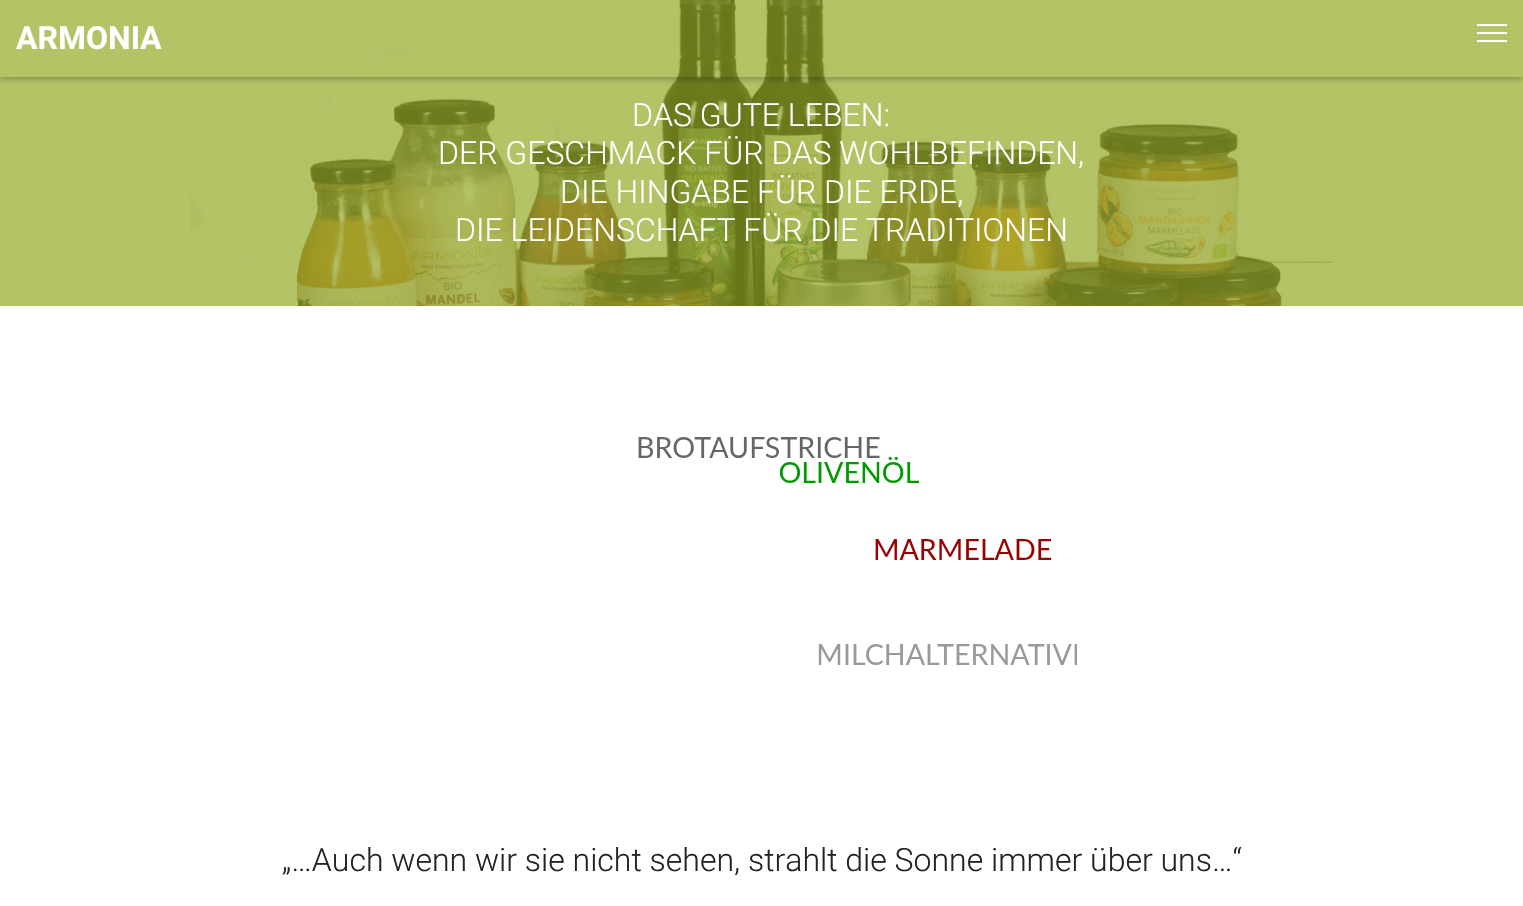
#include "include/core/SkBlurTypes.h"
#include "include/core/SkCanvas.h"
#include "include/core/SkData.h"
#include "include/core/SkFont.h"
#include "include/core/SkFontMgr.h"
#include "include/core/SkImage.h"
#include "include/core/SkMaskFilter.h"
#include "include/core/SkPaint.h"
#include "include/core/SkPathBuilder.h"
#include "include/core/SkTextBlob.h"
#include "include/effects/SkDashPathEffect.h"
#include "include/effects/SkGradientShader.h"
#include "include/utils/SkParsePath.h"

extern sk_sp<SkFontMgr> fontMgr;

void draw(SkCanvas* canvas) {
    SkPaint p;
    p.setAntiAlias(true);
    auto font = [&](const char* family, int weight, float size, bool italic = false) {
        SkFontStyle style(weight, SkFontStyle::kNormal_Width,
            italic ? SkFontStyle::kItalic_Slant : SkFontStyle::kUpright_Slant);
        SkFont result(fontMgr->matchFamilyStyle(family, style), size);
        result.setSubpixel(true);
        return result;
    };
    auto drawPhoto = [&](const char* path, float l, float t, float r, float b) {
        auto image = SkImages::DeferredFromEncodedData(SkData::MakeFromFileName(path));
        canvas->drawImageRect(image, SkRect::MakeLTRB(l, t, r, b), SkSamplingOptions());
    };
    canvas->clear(0xFFFFFFFF);
    drawPhoto("media/1.png", 0, 0, 1523, 306);
    canvas->save();
    canvas->clipRect(SkRect::MakeLTRB(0, 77, 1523, 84));
    p.setColor(0x1F000000);
    p.setMaskFilter(SkMaskFilter::MakeBlur(kNormal_SkBlurStyle, 5));
    canvas->drawRect(SkRect::MakeLTRB(0, 2, 1523, 79), p);
    p.setMaskFilter(nullptr);
    canvas->restore();
    canvas->save();
    canvas->clipRect(SkRect::MakeLTRB(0, 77, 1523, 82));
    p.setColor(0x29000000);
    p.setMaskFilter(SkMaskFilter::MakeBlur(kNormal_SkBlurStyle, 2.5f));
    canvas->drawRect(SkRect::MakeLTRB(0, 2, 1523, 79), p);
    p.setMaskFilter(nullptr);
    canvas->restore();
    auto font1 = font("Roboto", 700, 32);
    p.setColor(0xFFFFFFFF);
    canvas->drawString("ARMONIA", 16, 49, font1, p);
    {
        const struct { float l, t, r, b; SkColor color; } items[] = {
            {1477, 24, 1507, 26, 0xFFFFFFFF},
            {1477, 32, 1507, 34, 0xFFFFFFFF},
            {1477, 40, 1507, 42, 0xFFFFFFFF},
        };
        for (auto [l, t, r, b, color] : items) {
            p.setColor(color);
            canvas->drawRect(SkRect::MakeLTRB(l, t, r, b), p);
        }
    }
    auto font2 = font("Roboto", 300, 32);
    {
        const struct { const char* s; float x, y; } items[] = {
            {"DAS GUTE LEBEN:", 632, 126},
            {"DER GESCHMACK FÜR DAS WOHLBEFINDEN,", 438, 164},
            {"DIE HINGABE FÜR DIE ERDE,", 560, 203},
            {"DIE LEIDENSCHAFT FÜR DIE TRADITIONEN", 455, 241},
        };
        for (auto [s, x, y] : items) {
            canvas->drawString(s, x, y, font2, p);
        }
    }
    drawPhoto("media/2.png", 638, 437, 1077, 665);
    p.setColor(0xFF232323);
    canvas->drawString("„…Auch wenn wir sie nicht sehen, strahlt die Sonne immer über uns…“", 282, 871, font2, p);
}
